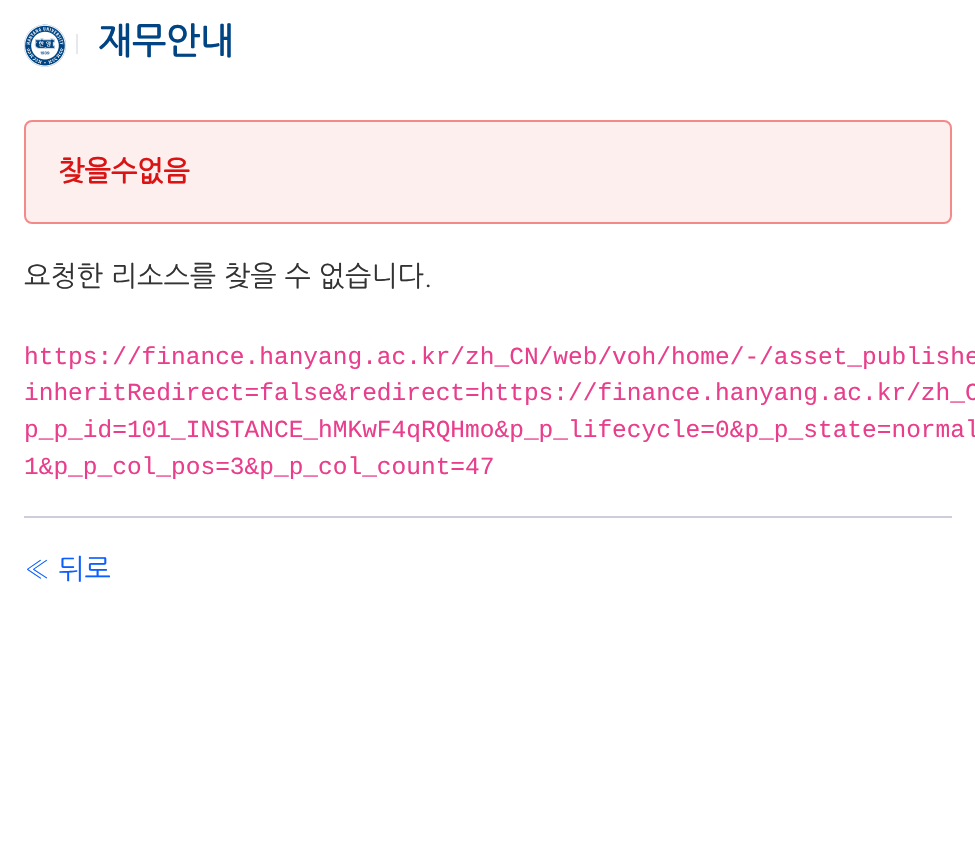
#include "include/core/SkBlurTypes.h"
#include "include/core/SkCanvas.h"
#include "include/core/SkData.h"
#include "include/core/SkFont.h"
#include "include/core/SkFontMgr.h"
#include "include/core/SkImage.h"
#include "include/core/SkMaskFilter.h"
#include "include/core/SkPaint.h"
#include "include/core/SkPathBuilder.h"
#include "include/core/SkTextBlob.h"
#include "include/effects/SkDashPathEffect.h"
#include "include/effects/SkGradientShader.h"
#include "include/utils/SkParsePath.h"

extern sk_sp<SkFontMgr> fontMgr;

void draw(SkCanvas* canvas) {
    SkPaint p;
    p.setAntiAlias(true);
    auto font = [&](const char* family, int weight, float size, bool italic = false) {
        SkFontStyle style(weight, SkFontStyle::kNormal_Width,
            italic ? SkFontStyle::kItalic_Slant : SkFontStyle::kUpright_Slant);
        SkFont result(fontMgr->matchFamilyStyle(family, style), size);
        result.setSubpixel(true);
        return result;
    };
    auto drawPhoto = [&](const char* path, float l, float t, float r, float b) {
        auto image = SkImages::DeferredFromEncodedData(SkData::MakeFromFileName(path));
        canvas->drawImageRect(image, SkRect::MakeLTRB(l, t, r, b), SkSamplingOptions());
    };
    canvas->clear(0xFFFFFFFF);
    drawPhoto("media/1.png", 24, 24, 66, 67);
    p.setColor(0xFFE7E7ED);
    canvas->drawRect(SkRect::MakeLTRB(76, 34, 78, 54), p);
    auto font1 = font("NanumGothic", 700, 36);
    p.setColor(0xFF004483);
    canvas->drawString("재무안내", 98, 54, font1, p);
    p.setColor(0xFFFEEFEF);
    canvas->drawRoundRect(SkRect::MakeLTRB(25, 121, 951, 223), 7, 7, p);
    p.setStyle(SkPaint::kStroke_Style);
    p.setStrokeWidth(2);
    p.setColor(0xFFF48989);
    canvas->drawRoundRect(SkRect::MakeLTRB(25, 121, 951, 223), 7, 7, p);
    auto font2 = font("NanumGothic", 700, 28);
    p.setStyle(SkPaint::kFill_Style);
    p.setColor(0xFFDA1414);
    canvas->drawString("찾을 수 없음", 58, 181, font2, p);
    auto font3 = font("NanumGothic", 400, 28);
    p.setColor(0xFF333333);
    canvas->drawString("요청한 리소스를 찾을 수 없습니다.", 24, 286, font3, p);
    auto font4 = font("Liberation Mono", 400, 24.5f);
    p.setColor(0xFFE83E8C);
    {
        const struct { const char* s; float x, y; } items[] = {
            {"https://finance.hanyang.ac.kr/zh_CN/web/voh/home/-/asset_publishe", 24, 364},
            {"inheritRedirect=false&redirect=https://finance.hanyang.ac.kr/zh_C", 24, 400},
            {"p_p_id=101_INSTANCE_hMKwF4qRQHmo&p_p_lifecycle=0&p_p_state=normal", 24, 437},
            {"1&p_p_col_pos=3&p_p_col_count=47", 24, 474},
        };
        for (auto [s, x, y] : items) {
            canvas->drawString(s, x, y, font4, p);
        }
    }
    p.setColor(0xFFCDCED9);
    canvas->drawRect(SkRect::MakeLTRB(24, 516, 952, 518), p);
    p.setColor(0xFF0B5FFF);
    canvas->drawString("« 뒤로", 24, 579, font3, p);
}
